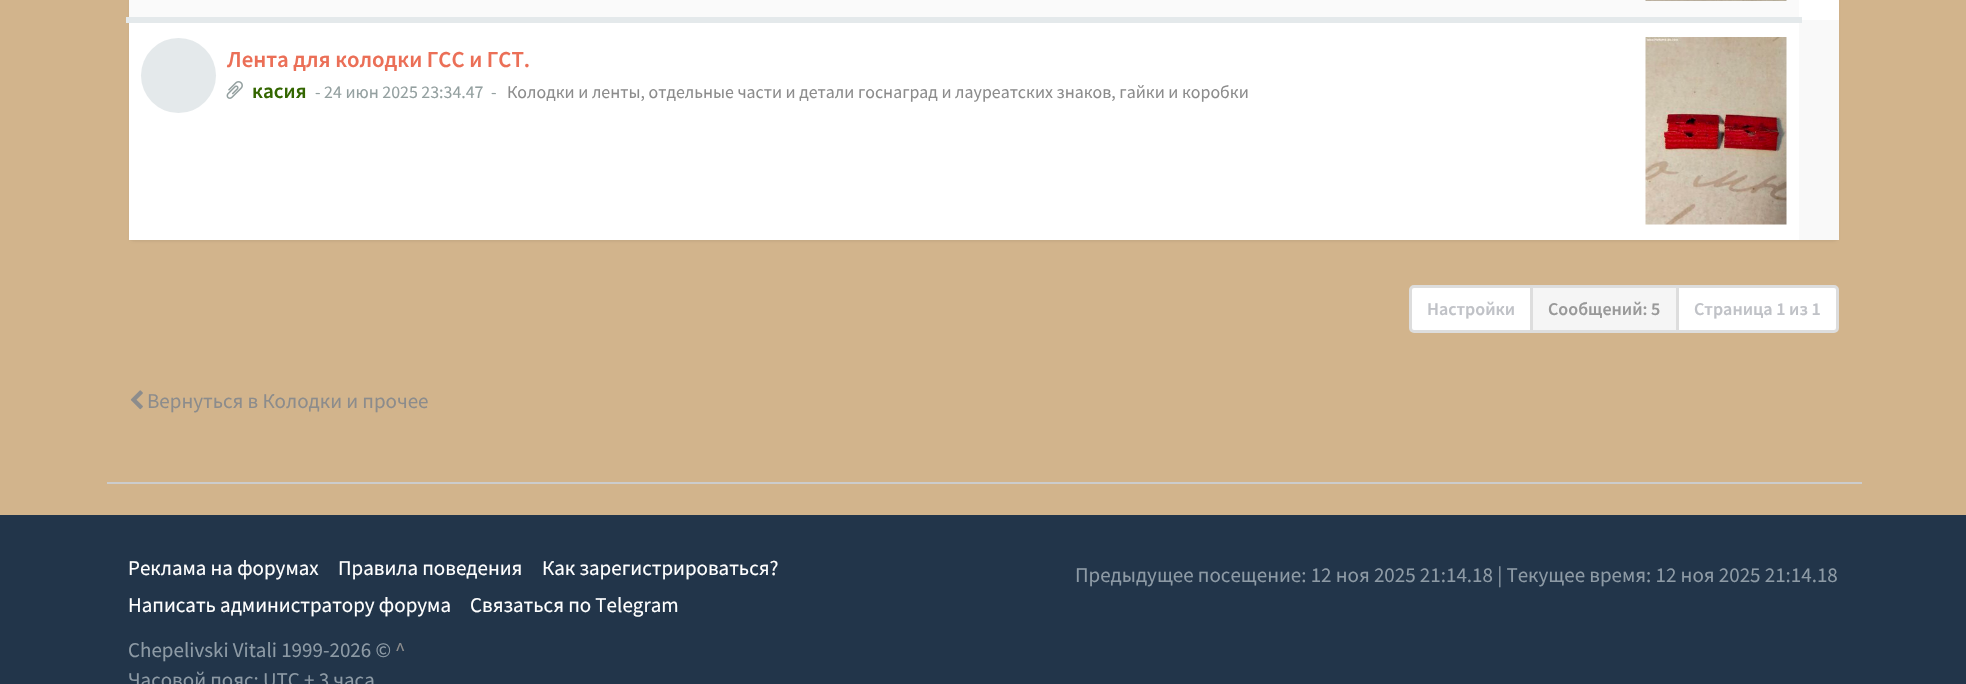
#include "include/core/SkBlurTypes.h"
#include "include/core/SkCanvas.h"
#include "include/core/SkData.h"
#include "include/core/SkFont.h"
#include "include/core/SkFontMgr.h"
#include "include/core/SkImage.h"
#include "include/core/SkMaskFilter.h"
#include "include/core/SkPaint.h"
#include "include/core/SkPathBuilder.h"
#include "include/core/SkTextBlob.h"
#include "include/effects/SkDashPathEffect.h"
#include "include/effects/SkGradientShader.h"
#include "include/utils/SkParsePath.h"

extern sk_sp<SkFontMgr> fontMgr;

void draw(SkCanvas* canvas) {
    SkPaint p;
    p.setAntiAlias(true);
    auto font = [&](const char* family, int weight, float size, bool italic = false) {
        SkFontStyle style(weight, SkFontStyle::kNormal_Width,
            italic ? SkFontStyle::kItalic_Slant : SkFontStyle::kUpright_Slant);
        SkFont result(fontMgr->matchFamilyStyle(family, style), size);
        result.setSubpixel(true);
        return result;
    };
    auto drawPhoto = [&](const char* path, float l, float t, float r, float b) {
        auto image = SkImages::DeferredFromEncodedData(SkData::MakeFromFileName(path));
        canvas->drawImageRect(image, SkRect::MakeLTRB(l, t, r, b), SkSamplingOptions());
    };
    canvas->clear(0xFFD2B48C);
    p.setColor(0x0D000000);
    p.setMaskFilter(SkMaskFilter::MakeBlur(kNormal_SkBlurStyle, 1));
    canvas->drawRoundRect(SkRect::MakeLTRB(129, -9, 1839, 242), 6, 6, p);
    p.setMaskFilter(nullptr);
    p.setColor(0xFFFFFFFF);
    canvas->drawRect(SkRect::MakeLTRB(1799, 0, 1839, 20), p);
    p.setColor(0xFFFAFAFA);
    canvas->drawRect(SkRect::MakeLTRB(129, 0, 1799, 17), p);
    drawPhoto("media/1.png", 1645, 0, 1787, 1);
    {
        const struct { float l, t, r, b; SkColor color; } items[] = {
            {1799, 20, 1839, 240, 0xFFF9F9F9},
            {126, 17, 1802, 23, 0xFFE4E9EB},
            {129, 23, 1799, 240, 0xFFFFFFFF},
        };
        for (auto [l, t, r, b, color] : items) {
            p.setColor(color);
            canvas->drawRect(SkRect::MakeLTRB(l, t, r, b), p);
        }
    }
    drawPhoto("media/2.png", 1645, 37, 1787, 225);
    p.setColor(0xFFE4E9EB);
    canvas->drawCircle(178.5f, 75.5f, 37.5f, p);
    auto font1 = font("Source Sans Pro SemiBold", 600, 22.75f);
    p.setColor(0xFFEB6F57);
    canvas->drawString("Лента для колодки ГСС и ГСТ.", 227, 67, font1, p);
    drawPhoto("media/3.png", 226, 81, 243, 99);
    auto font2 = font("Source Sans Pro SemiBold", 600, 21);
    p.setColor(0xFF336600);
    canvas->drawString("касия", 252, 98, font2, p);
    auto font3 = font("Source Sans Pro", 400, 17.85f);
    p.setColor(0xFF94A0A0);
    canvas->drawString("- 24 июн 2025 23:34.47", 315, 98, font3, p);
    canvas->drawString("-", 491, 98, font3, p);
    p.setColor(0xFF8C8C8C);
    canvas->drawString("Колодки и ленты, отдельные части и детали госнаград и лауреатских знаков, гайки и коробки", 507, 98, font3, p);
    p.setColor(0xFFFFFFFF);
    canvas->drawPath(SkPathBuilder().moveTo(1414, 286.5f).lineTo(1531.5f, 286.5f).lineTo(1531.5f, 331.5f).lineTo(1414, 331.5f).cubicTo(1412, 331.5f, 1410.5f, 330, 1410.5f, 328).lineTo(1410.5f, 290).cubicTo(1410.5f, 288, 1412, 286.5f, 1414, 286.5f).close().detach(), p);
    p.setStyle(SkPaint::kStroke_Style);
    p.setStrokeWidth(3);
    p.setColor(0xFFDDDDDD);
    canvas->drawPath(SkPathBuilder().moveTo(1414, 286.5f).lineTo(1531.5f, 286.5f).lineTo(1531.5f, 331.5f).lineTo(1414, 331.5f).cubicTo(1412, 331.5f, 1410.5f, 330, 1410.5f, 328).lineTo(1410.5f, 290).cubicTo(1410.5f, 288, 1412, 286.5f, 1414, 286.5f).close().detach(), p);
    auto font4 = font("Source Sans Pro SemiBold", 600, 18);
    p.setStyle(SkPaint::kFill_Style);
    p.setColor(0xFFC0C2C7);
    canvas->drawString("Настройки", 1427, 315, font4, p);
    p.setColor(0xFFFFFFFF);
    canvas->drawPath(SkPathBuilder().moveTo(1677.5f, 286.5f).lineTo(1834, 286.5f).cubicTo(1836, 286.5f, 1837.5f, 288, 1837.5f, 290).lineTo(1837.5f, 328).cubicTo(1837.5f, 330, 1836, 331.5f, 1834, 331.5f).lineTo(1677.5f, 331.5f).close().detach(), p);
    p.setStyle(SkPaint::kStroke_Style);
    p.setColor(0xFFDDDDDD);
    canvas->drawPath(SkPathBuilder().moveTo(1677.5f, 286.5f).lineTo(1834, 286.5f).cubicTo(1836, 286.5f, 1837.5f, 288, 1837.5f, 290).lineTo(1837.5f, 328).cubicTo(1837.5f, 330, 1836, 331.5f, 1834, 331.5f).lineTo(1677.5f, 331.5f).close().detach(), p);
    p.setStyle(SkPaint::kFill_Style);
    p.setColor(0xFFF5F5F5);
    canvas->drawRect(SkRect::MakeLTRB(1531.5f, 286.5f, 1677.5f, 331.5f), p);
    p.setStyle(SkPaint::kStroke_Style);
    p.setColor(0xFFDDDDDD);
    canvas->drawRect(SkRect::MakeLTRB(1531.5f, 286.5f, 1677.5f, 331.5f), p);
    p.setStyle(SkPaint::kFill_Style);
    p.setColor(0xFF999999);
    canvas->drawString("Сообщений: 5", 1548, 315, font4, p);
    p.setColor(0xFFC0C2C7);
    canvas->drawString("Страница 1 из 1", 1694, 315, font4, p);
    drawPhoto("media/4.png", 130, 390, 143, 410);
    auto font5 = font("Source Sans Pro", 400, 21);
    p.setColor(0xFF8C8C8C);
    canvas->drawString("Вернуться в Колодки и прочее", 147, 408, font5, p);
    p.setColor(0xFFCCCCCC);
    canvas->drawRect(SkRect::MakeLTRB(107, 482, 1862, 484), p);
    p.setColor(0xFF22354A);
    canvas->drawRect(SkRect::MakeLTRB(0, 515, 1966, 684), p);
    p.setColor(0xFFFFFFFF);
    {
        const struct { const char* s; float x, y; } items[] = {
            {"Реклама на форумах", 128, 575},
            {"Правила поведения", 338, 575},
            {"Как зарегистрироваться?", 542, 575},
            {"Написать администратору форума", 128, 612},
            {"Связаться по Telegram", 470, 612},
        };
        for (auto [s, x, y] : items) {
            canvas->drawString(s, x, y, font5, p);
        }
    }
    p.setColor(0xFF8D9AA5);
    canvas->drawString("Chepelivski Vitali 1999-2026 ©", 128, 657, font5, p);
    p.setColor(0xFF8C8C8C);
    canvas->drawString("^", 395, 657, font5, p);
    p.setColor(0xFF8D9AA5);
    canvas->drawString("Часовой пояс: UTC + 3 часа", 128, 687, font5, p);
    canvas->drawString("Предыдущее посещение: 12 ноя 2025 21:14.18 | Текущее время: 12 ноя 2025 21:14.18", 1075, 582, font5, p);
}
